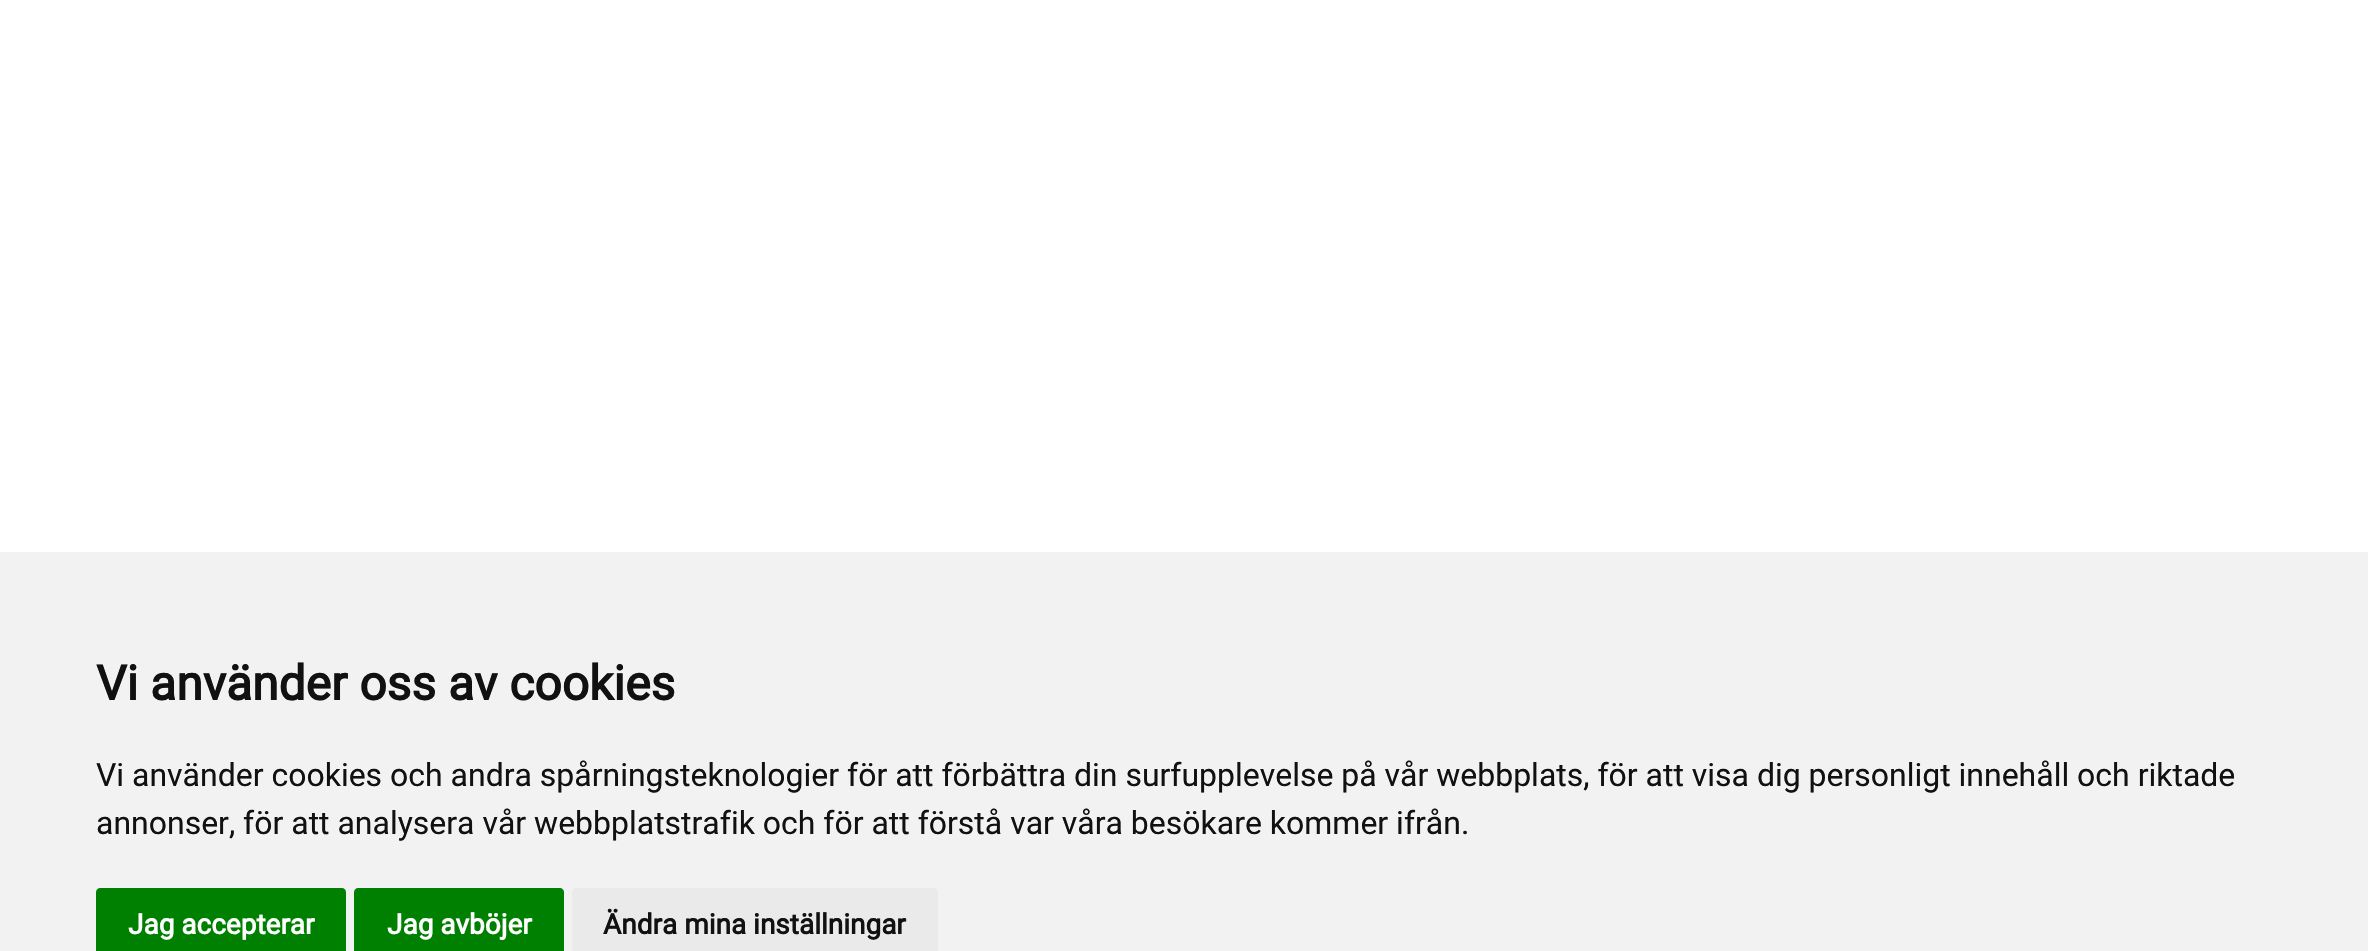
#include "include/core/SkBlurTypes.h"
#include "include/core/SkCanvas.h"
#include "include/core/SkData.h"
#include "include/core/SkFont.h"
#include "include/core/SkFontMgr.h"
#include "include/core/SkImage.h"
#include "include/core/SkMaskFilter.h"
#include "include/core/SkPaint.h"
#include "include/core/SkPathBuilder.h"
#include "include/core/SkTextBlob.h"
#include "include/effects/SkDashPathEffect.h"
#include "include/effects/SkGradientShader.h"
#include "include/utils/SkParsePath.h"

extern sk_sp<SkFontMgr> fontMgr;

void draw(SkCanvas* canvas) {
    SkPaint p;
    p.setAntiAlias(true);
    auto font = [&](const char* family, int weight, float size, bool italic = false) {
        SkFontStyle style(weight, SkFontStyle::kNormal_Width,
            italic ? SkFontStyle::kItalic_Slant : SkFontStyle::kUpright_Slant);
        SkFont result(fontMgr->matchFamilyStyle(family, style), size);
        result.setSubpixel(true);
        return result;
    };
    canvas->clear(0xFFFFFFFF);
    p.setColor(0xFFF2F2F2);
    canvas->drawRect(SkRect::MakeLTRB(0, 552, 2368, 951), p);
    auto font1 = font("Roboto", 700, 48);
    p.setColor(0xFF111111);
    canvas->drawString("Vi använder oss av cookies", 96, 700, font1, p);
    auto font2 = font("Roboto", 400, 32);
    canvas->drawString("Vi använder cookies och andra spårningsteknologier för att förbättra din surfupplevelse på vår webbplats, för att visa dig personligt innehåll och riktade", 96, 786, font2, p);
    canvas->drawString("annonser, för att analysera vår webbplatstrafik och för att förstå var våra besökare kommer ifrån.", 96, 834, font2, p);
    p.setColor(0xFF008000);
    canvas->drawPath(SkPathBuilder().moveTo(100, 888).lineTo(342, 888).cubicTo(344, 888, 346, 890, 346, 892).lineTo(346, 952).lineTo(96, 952).lineTo(96, 892).cubicTo(96, 890, 98, 888, 100, 888).close().detach(), p);
    auto font3 = font("Roboto", 700, 28);
    p.setColor(0xFFFFFFFF);
    canvas->drawString("Jag accepterar", 128, 934, font3, p);
    p.setColor(0xFF008000);
    canvas->drawPath(SkPathBuilder().moveTo(358, 888).lineTo(560, 888).cubicTo(562, 888, 564, 890, 564, 892).lineTo(564, 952).lineTo(354, 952).lineTo(354, 892).cubicTo(354, 890, 356, 888, 358, 888).close().detach(), p);
    p.setColor(0xFFFFFFFF);
    canvas->drawString("Jag avböjer", 387, 934, font3, p);
    p.setColor(0xFFEAEAEA);
    canvas->drawPath(SkPathBuilder().moveTo(576, 888).lineTo(934, 888).cubicTo(936, 888, 938, 890, 938, 892).lineTo(938, 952).lineTo(572, 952).lineTo(572, 892).cubicTo(572, 890, 574, 888, 576, 888).close().detach(), p);
    p.setColor(0xFF111111);
    canvas->drawString("Ändra mina inställningar", 603, 934, font3, p);
}
